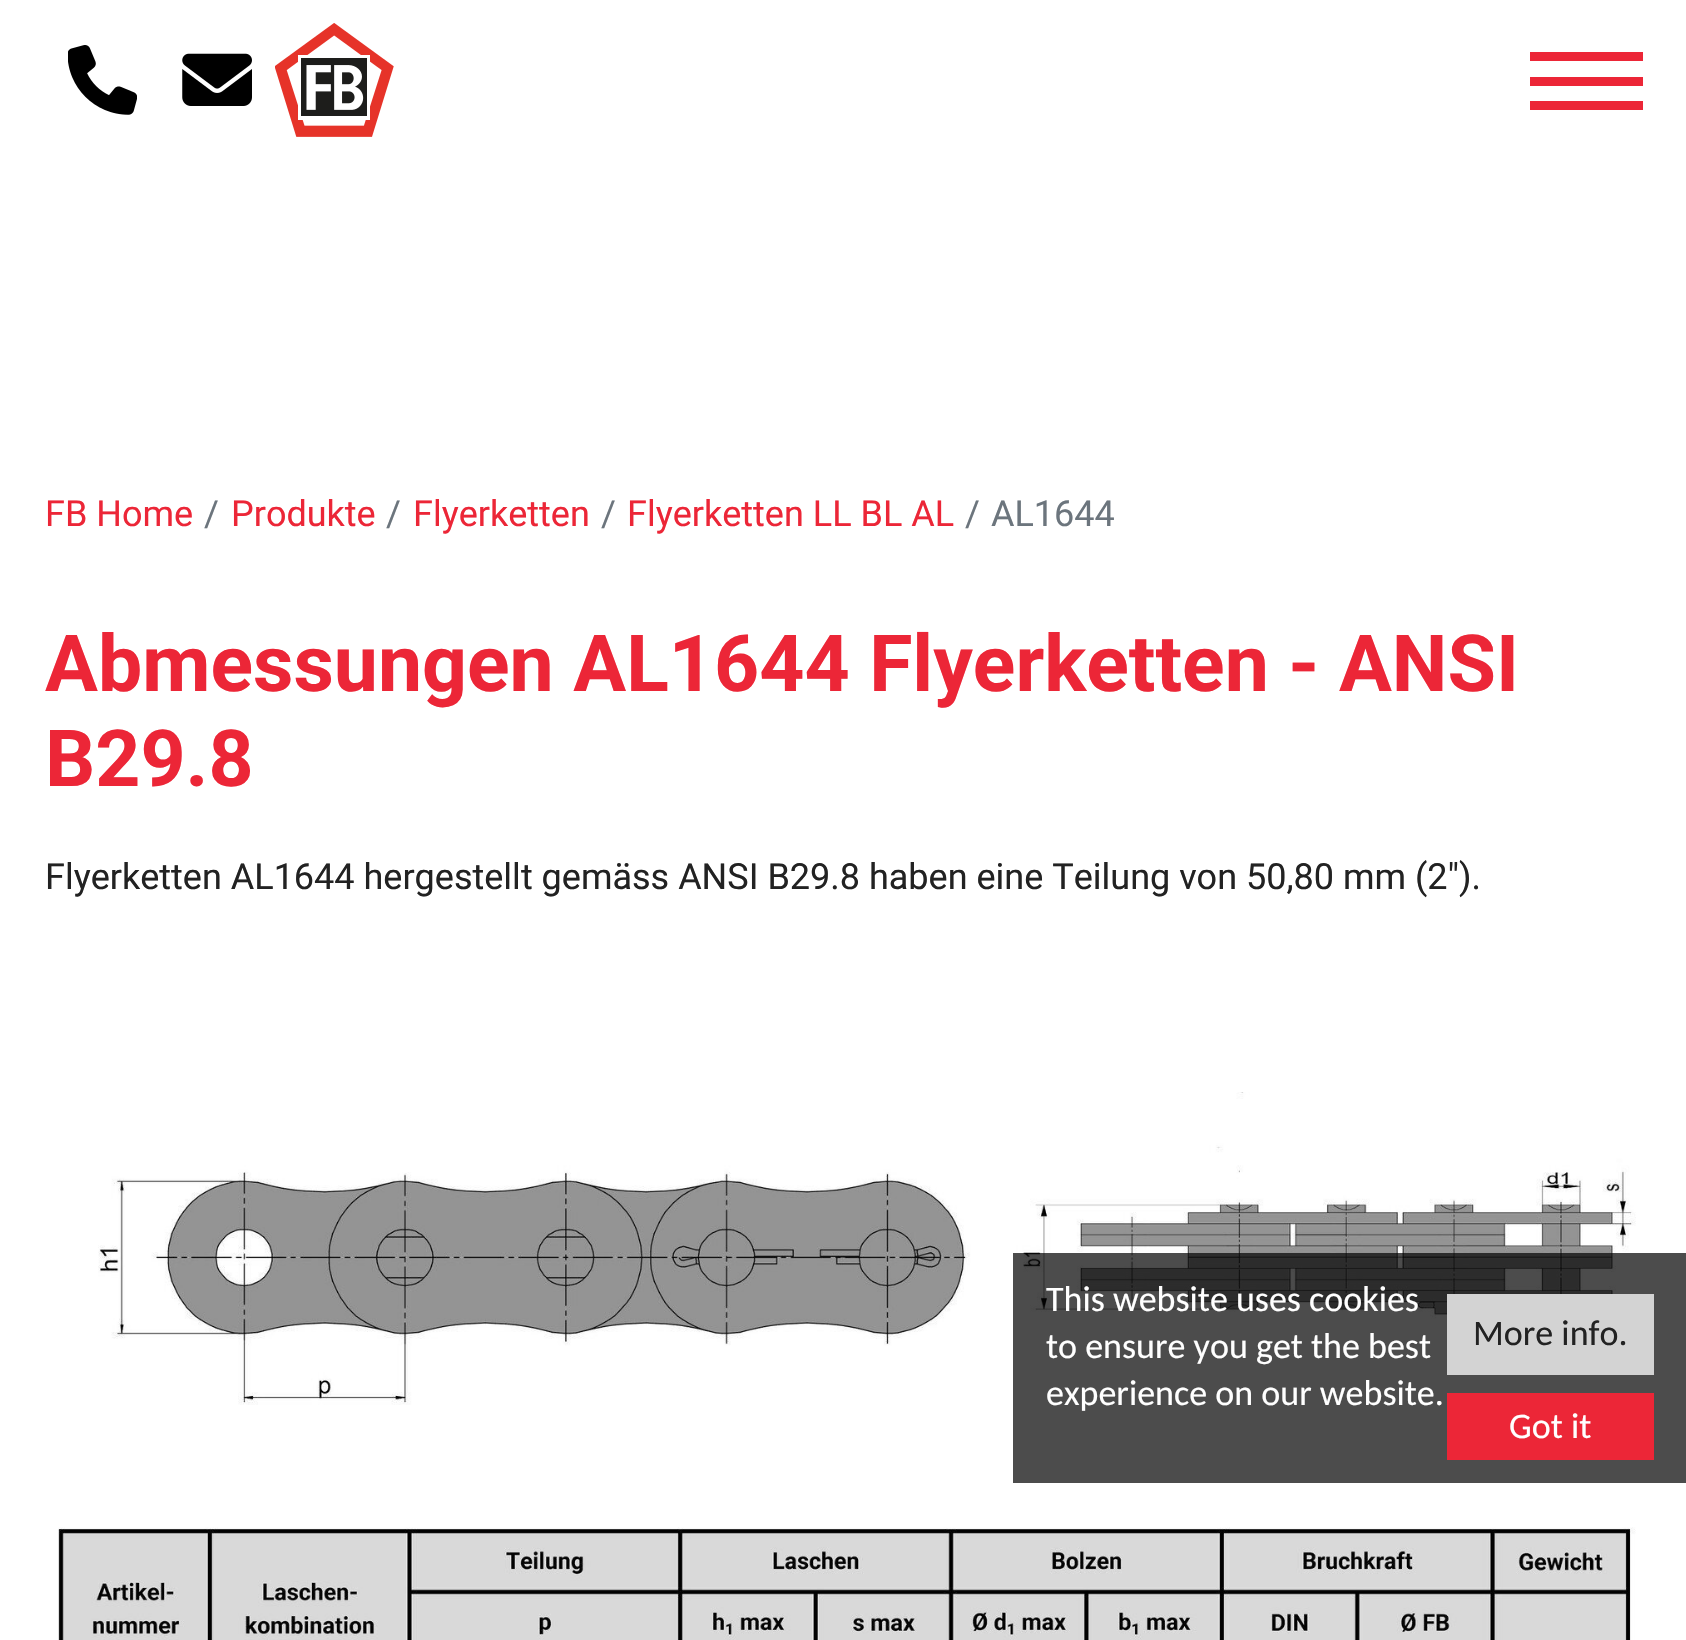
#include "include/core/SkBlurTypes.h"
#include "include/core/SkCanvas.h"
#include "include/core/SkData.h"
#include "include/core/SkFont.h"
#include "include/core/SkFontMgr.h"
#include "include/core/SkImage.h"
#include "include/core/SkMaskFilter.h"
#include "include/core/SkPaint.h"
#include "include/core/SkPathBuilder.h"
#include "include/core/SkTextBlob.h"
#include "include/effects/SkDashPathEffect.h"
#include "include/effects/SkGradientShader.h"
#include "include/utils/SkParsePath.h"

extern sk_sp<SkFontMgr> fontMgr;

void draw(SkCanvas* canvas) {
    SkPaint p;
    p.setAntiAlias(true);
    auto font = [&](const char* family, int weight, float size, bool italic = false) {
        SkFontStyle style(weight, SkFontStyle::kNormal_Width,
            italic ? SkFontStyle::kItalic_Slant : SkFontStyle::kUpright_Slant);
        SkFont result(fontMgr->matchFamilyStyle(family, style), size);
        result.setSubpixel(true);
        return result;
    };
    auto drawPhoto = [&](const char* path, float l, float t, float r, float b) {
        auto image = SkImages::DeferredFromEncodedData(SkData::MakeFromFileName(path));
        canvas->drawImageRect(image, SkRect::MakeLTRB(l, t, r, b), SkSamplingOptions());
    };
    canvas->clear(0xFFFFFFFF);
    drawPhoto("media/1.png", 68, 45, 137, 115);
    drawPhoto("media/2.png", 182, 53, 252, 106);
    drawPhoto("media/3.png", 275, 23, 394, 137);
    {
        const struct { float l, t, r, b; SkColor color; } items[] = {
            {1530, 52, 1643, 61, 0xFFEC2637},
            {1530, 77, 1643, 86, 0xFFEC2637},
            {1530, 101, 1643, 110, 0xFFEC2637},
        };
        for (auto [l, t, r, b, color] : items) {
            p.setColor(color);
            canvas->drawRect(SkRect::MakeLTRB(l, t, r, b), p);
        }
    }
    auto font1 = font("Roboto", 400, 36);
    canvas->drawString("FB Home", 45, 526, font1, p);
    p.setColor(0xFF6C757D);
    canvas->drawString("/", 204, 526, font1, p);
    p.setColor(0xFFEC2637);
    canvas->drawString("Produkte", 231, 526, font1, p);
    p.setColor(0xFF6C757D);
    canvas->drawString("/", 386, 526, font1, p);
    p.setColor(0xFFEC2637);
    canvas->drawString("Flyerketten", 413, 526, font1, p);
    p.setColor(0xFF6C757D);
    canvas->drawString("/", 601, 526, font1, p);
    p.setColor(0xFFEC2637);
    canvas->drawString("Flyerketten LL BL AL", 627, 526, font1, p);
    p.setColor(0xFF6C757D);
    canvas->drawString("/", 965, 526, font1, p);
    canvas->drawString("AL1644", 991, 526, font1, p);
    auto font2 = font("Roboto", 700, 78.75f);
    p.setColor(0xFFEC2637);
    canvas->drawString("Abmessungen AL1644 Flyerketten - ANSI", 45, 691, font2, p);
    canvas->drawString("B29.8", 45, 786, font2, p);
    p.setColor(0xFF222222);
    canvas->drawString("Flyerketten AL1644 hergestellt gemäss ANSI B29.8 haben eine Teilung von 50,80 mm (2\").", 45, 889, font1, p);
    drawPhoto("media/4.png", 98, 1092, 1636, 1405);
    drawPhoto("media/5.png", 58, 1527, 1636, 1640);
    p.setColor(0xB3000000);
    canvas->drawRect(SkRect::MakeLTRB(1013, 1253, 1686, 1483), p);
    auto font3 = font("Carlito", 400, 36);
    p.setColor(0xFFFFFFFF);
    {
        const struct { const char* s; float x, y; } items[] = {
            {"This website uses cookies", 1046, 1311},
            {"to ensure you get the best", 1046, 1358},
            {"experience on our website.", 1046, 1405},
        };
        for (auto [s, x, y] : items) {
            canvas->drawString(s, x, y, font3, p);
        }
    }
    p.setColor(0xFFD3D3D3);
    canvas->drawRect(SkRect::MakeLTRB(1447, 1294, 1654, 1375), p);
    p.setColor(0xFF222222);
    canvas->drawString("More info.", 1473, 1345, font3, p);
    p.setColor(0xFFEC2637);
    canvas->drawRect(SkRect::MakeLTRB(1447, 1393, 1654, 1460), p);
    p.setColor(0xFFFFFFFF);
    canvas->drawString("Got it", 1509, 1438, font3, p);
}
